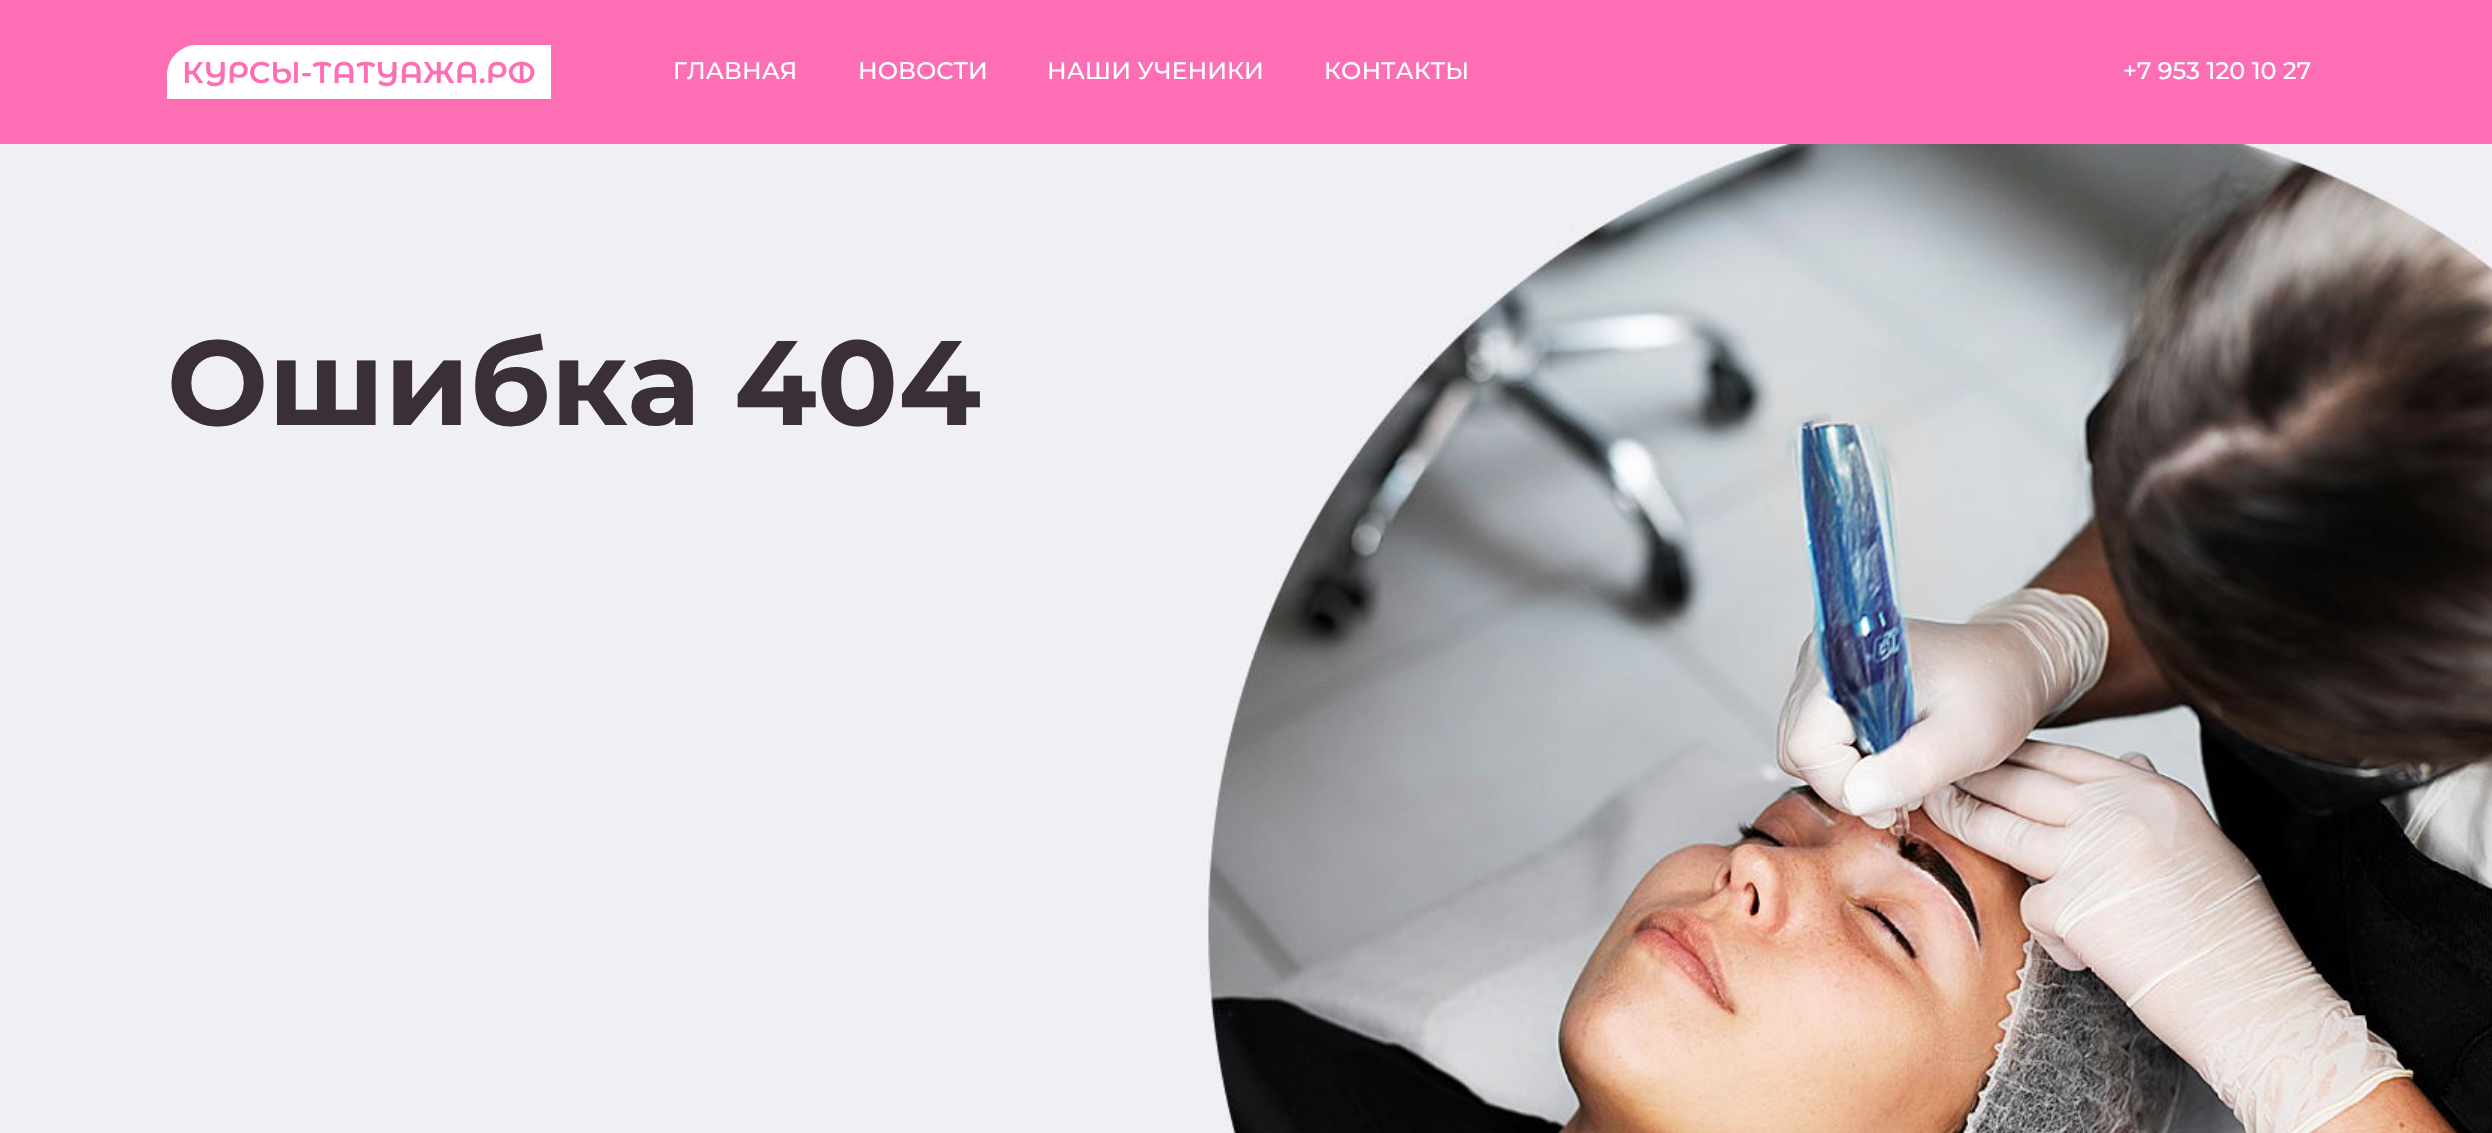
#include "include/core/SkBlurTypes.h"
#include "include/core/SkCanvas.h"
#include "include/core/SkData.h"
#include "include/core/SkFont.h"
#include "include/core/SkFontMgr.h"
#include "include/core/SkImage.h"
#include "include/core/SkMaskFilter.h"
#include "include/core/SkPaint.h"
#include "include/core/SkPathBuilder.h"
#include "include/core/SkTextBlob.h"
#include "include/effects/SkDashPathEffect.h"
#include "include/effects/SkGradientShader.h"
#include "include/utils/SkParsePath.h"

extern sk_sp<SkFontMgr> fontMgr;

void draw(SkCanvas* canvas) {
    SkPaint p;
    p.setAntiAlias(true);
    auto font = [&](const char* family, int weight, float size, bool italic = false) {
        SkFontStyle style(weight, SkFontStyle::kNormal_Width,
            italic ? SkFontStyle::kItalic_Slant : SkFontStyle::kUpright_Slant);
        SkFont result(fontMgr->matchFamilyStyle(family, style), size);
        result.setSubpixel(true);
        return result;
    };
    auto drawPhoto = [&](const char* path, float l, float t, float r, float b) {
        auto image = SkImages::DeferredFromEncodedData(SkData::MakeFromFileName(path));
        canvas->drawImageRect(image, SkRect::MakeLTRB(l, t, r, b), SkSamplingOptions());
    };
    canvas->clear(0xFFFD6EB4);
    p.setColor(0xFFFFFFFF);
    canvas->drawPath(SkPathBuilder().moveTo(197, 45).lineTo(551, 45).lineTo(551, 99).lineTo(167, 99).lineTo(167, 75).cubicTo(167, 58.5f, 180.5f, 45, 197, 45).close().detach(), p);
    auto font1 = font("Montserrat Alternates", 600, 30);
    p.setColor(0xFFFE6EB4);
    canvas->drawString("КУРСЫ-ТАТУАЖА.РФ", 182, 83, font1, p);
    auto font2 = font("Montserrat", 500, 24);
    p.setColor(0xFFFFFFFF);
    {
        const struct { const char* s; float x, y; } items[] = {
            {"ГЛАВНАЯ", 673, 79},
            {"НОВОСТИ", 858, 79},
            {"НАШИ УЧЕНИКИ", 1047, 79},
            {"КОНТАКТЫ", 1324, 79},
            {"+7 953 120 10 27", 2123, 79},
        };
        for (auto [s, x, y] : items) {
            canvas->drawString(s, x, y, font2, p);
        }
    }
    drawPhoto("media/1.png", 0, 144, 2492, 1133);
    auto font3 = font("Montserrat", 700, 120);
    p.setColor(0xFF3A2E38);
    canvas->drawString("Ошибка 404", 167, 425, font3, p);
}
